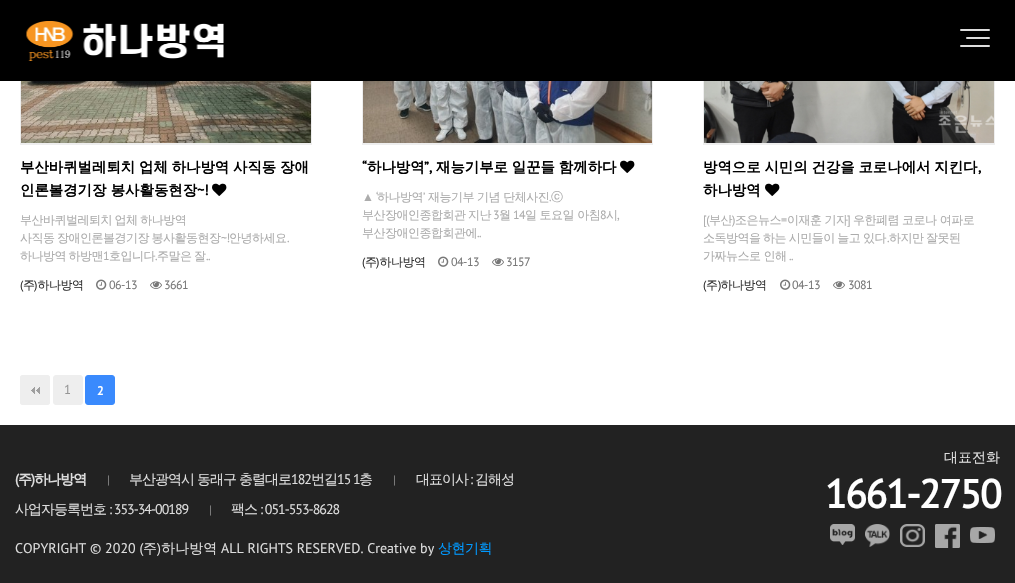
#include "include/core/SkBlurTypes.h"
#include "include/core/SkCanvas.h"
#include "include/core/SkData.h"
#include "include/core/SkFont.h"
#include "include/core/SkFontMgr.h"
#include "include/core/SkImage.h"
#include "include/core/SkMaskFilter.h"
#include "include/core/SkPaint.h"
#include "include/core/SkPathBuilder.h"
#include "include/core/SkTextBlob.h"
#include "include/effects/SkDashPathEffect.h"
#include "include/effects/SkGradientShader.h"
#include "include/utils/SkParsePath.h"

extern sk_sp<SkFontMgr> fontMgr;

void draw(SkCanvas* canvas) {
    SkPaint p;
    p.setAntiAlias(true);
    auto font = [&](const char* family, int weight, float size, bool italic = false) {
        SkFontStyle style(weight, SkFontStyle::kNormal_Width,
            italic ? SkFontStyle::kItalic_Slant : SkFontStyle::kUpright_Slant);
        SkFont result(fontMgr->matchFamilyStyle(family, style), size);
        result.setSubpixel(true);
        return result;
    };
    auto drawTracked = [&](const char* s, float x, float y, const SkFont& font, const SkPaint& ink, float letter, float word) {
        std::vector<SkGlyphID> glyphs(font.countText(s, strlen(s), SkTextEncoding::kUTF8));
        std::vector<float> xs(glyphs.size());
        font.textToGlyphs(s, strlen(s), SkTextEncoding::kUTF8, glyphs);
        font.getXPos(glyphs, xs, x);
        float extra = 0;
        for (size_t i = 0; i < glyphs.size(); i++) {
            xs[i] += extra;
            extra += letter + word * (glyphs[i] == font.unicharToGlyph(' '));
        }
        canvas->drawTextBlob(SkTextBlob::MakeFromPosHGlyphs(glyphs, xs, y, font), 0, 0, ink);
    };
    auto drawPhoto = [&](const char* path, float l, float t, float r, float b) {
        auto image = SkImages::DeferredFromEncodedData(SkData::MakeFromFileName(path));
        canvas->drawImageRect(image, SkRect::MakeLTRB(l, t, r, b), SkSamplingOptions());
    };
    canvas->clear(0xFFFFFFFF);
    p.setStyle(SkPaint::kStroke_Style);
    p.setStrokeWidth(1);
    p.setColor(0xFFEEEEEE);
    canvas->drawRect(SkRect::MakeLTRB(20.5f, -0.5f, 311.5f, 143.5f), p);
    canvas->drawRect(SkRect::MakeLTRB(362.5f, -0.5f, 652.5f, 143.5f), p);
    canvas->drawRect(SkRect::MakeLTRB(703.5f, -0.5f, 994.5f, 143.5f), p);
    p.setStyle(SkPaint::kFill_Style);
    p.setColor(0xFF000000);
    canvas->drawRect(SkRect::MakeLTRB(0, 0, 1015, 81), p);
    drawPhoto("media/1.png", 26, 21, 224, 61);
    p.setColor(0xFFDDDDDD);
    canvas->drawRoundRect(SkRect::MakeLTRB(960, 29, 990, 31), 1, 1, p);
    canvas->drawRoundRect(SkRect::MakeLTRB(966, 37, 990, 39), 1, 1, p);
    canvas->drawRoundRect(SkRect::MakeLTRB(960, 45, 990, 47), 1, 1, p);
    p.setColor(0xFFEEEEEE);
    canvas->drawRect(SkRect::MakeLTRB(20, 144, 312, 145), p);
    drawPhoto("media/2.png", 21, 81, 311, 143);
    auto font1 = font("WenQuanYi Zen Hei", 700, 14.4f);
    p.setColor(0xFF000000);
    drawTracked("부산바퀴벌레퇴치 업체 하나방역 사직동 장애", 20, 172, font1, p, 0, -0.5f);
    canvas->drawString("인론볼경기장 봉사활동현장", 20, 195, font1, p);
    auto font2 = font("PT Sans", 700, 14.4f);
    canvas->drawString("~!", 197, 195, font2, p);
    drawPhoto("media/3.png", 212, 183, 227, 196);
    auto font3 = font("WenQuanYi Zen Hei", 500, 12);
    p.setColor(0xFFACACAC);
    drawTracked("부산바퀴벌레퇴치 업체 하나방역", 20, 224, font3, p, -0.5f, -0.5f);
    drawTracked("사직동", 20, 242, font3, p, -0.5f, 0);
    drawTracked("장애인론볼경기장 봉사활동현장", 57, 242, font3, p, -0.5f, -0.5f);
    auto font4 = font("PT Sans", 400, 12);
    drawTracked("~!", 221, 242, font4, p, -0.5f, 0);
    drawTracked("안녕하세요", 229, 242, font3, p, -0.5f, 0);
    drawTracked(".", 287, 242, font4, p, -0.5f, 0);
    drawTracked("하나방역 하방맨", 20, 260, font3, p, -0.5f, -0.5f);
    drawTracked("1", 103, 260, font4, p, -0.5f, 0);
    drawTracked("호입니다", 109, 260, font3, p, -0.5f, 0);
    drawTracked(".", 155, 260, font4, p, -0.5f, 0);
    drawTracked("주말은 잘", 157, 260, font3, p, -0.5f, -0.5f);
    drawTracked("..", 206, 260, font4, p, -0.5f, 0);
    p.setColor(0xFF333333);
    drawTracked("(", 20, 289, font4, p, -0.5f, 0);
    drawTracked("주 하나방역", 23, 289, font3, p, -0.5f, 0);
    drawTracked(")", 34, 289, font4, p, -0.5f, 0);
    drawPhoto("media/4.png", 96, 279, 107, 290);
    p.setColor(0xFF777777);
    drawTracked("06-13", 109, 289, font4, p, -0.5f, 0);
    drawPhoto("media/5.png", 150, 281, 162, 289);
    drawTracked("3661", 164, 289, font4, p, -0.5f, 0);
    p.setColor(0xFFEEEEEE);
    canvas->drawRect(SkRect::MakeLTRB(362, 144, 653, 145), p);
    drawPhoto("media/6.png", 363, 81, 652, 143);
    p.setColor(0xFF000000);
    canvas->drawString("“", 362, 172, font2, p);
    canvas->drawString("하나방역", 367, 172, font1, p);
    canvas->drawString("”,", 424, 172, font2, p);
    drawTracked("재능기부로 일꾼들 함께하다", 436, 172, font1, p, 0, -0.5f);
    drawPhoto("media/3.png", 620, 160, 635, 173);
    p.setColor(0xFFACACAC);
    drawTracked("‘", 376, 201, font4, p, -0.5f, 0);
    drawTracked(".", 549, 201, font4, p, -0.5f, 0);
    drawTracked("ⓒ", 551, 201, font3, p, -0.5f, 0);
    auto font5 = font("Liberation Sans", 400, 12);
    drawTracked("▲", 362, 201, font5, p, -0.5f, 0);
    drawTracked("하나방역", 377, 201, font3, p, -0.5f, 0);
    drawTracked("’", 423, 201, font4, p, -0.5f, 0);
    {
        const struct { const char* s; float x, y; } items[] = {
            {"재능기부 기념 단체사진", 428, 201},
            {"부산장애인종합회관", 362, 219},
            {"지난", 468, 219},
        };
        for (auto [s, x, y] : items) {
            drawTracked(s, x, y, font3, p, -0.5f, 0);
        }
    }
    drawTracked("3", 493, 219, font4, p, -0.5f, 0);
    drawTracked("월", 499, 219, font3, p, -0.5f, 0);
    drawTracked("14", 513, 219, font4, p, -0.5f, 0);
    drawTracked("일 토요일 아침", 525, 219, font3, p, -0.5f, 0);
    drawTracked("8", 600, 219, font4, p, -0.5f, 0);
    drawTracked("시", 606, 219, font3, p, -0.5f, 0);
    drawTracked(",", 617, 219, font4, p, -0.5f, 0);
    drawTracked("부산장애인종합회관에", 362, 237, font3, p, -0.5f, 0);
    drawTracked("..", 477, 237, font4, p, -0.5f, 0);
    p.setColor(0xFF333333);
    drawTracked("(", 362, 266, font4, p, -0.5f, 0);
    drawTracked("주 하나방역", 365, 266, font3, p, -0.5f, 0);
    drawTracked(")", 376, 266, font4, p, -0.5f, 0);
    drawPhoto("media/4.png", 438, 256, 449, 267);
    p.setColor(0xFF777777);
    drawTracked("04-13", 451, 266, font4, p, -0.5f, 0);
    drawPhoto("media/5.png", 492, 258, 504, 266);
    drawTracked("3157", 506, 266, font4, p, -0.5f, 0);
    p.setColor(0xFFEEEEEE);
    canvas->drawRect(SkRect::MakeLTRB(703, 144, 995, 145), p);
    drawPhoto("media/7.png", 704, 81, 994, 143);
    p.setColor(0xFF000000);
    drawTracked("방역으로 시민의 건강을 코로나에서 지킨다", 703, 172, font1, p, 0, -0.5f);
    canvas->drawString(",", 978, 172, font2, p);
    canvas->drawString("하나방역", 703, 195, font1, p);
    drawPhoto("media/3.png", 765, 183, 780, 196);
    p.setColor(0xFFACACAC);
    drawTracked("[(", 703, 224, font4, p, -0.5f, 0);
    drawTracked("부산 조은뉴스", 709, 224, font3, p, -0.5f, 0);
    drawTracked(")", 732, 224, font4, p, -0.5f, 0);
    drawTracked("=", 781, 224, font4, p, -0.5f, 0);
    drawTracked("이재훈 기자", 787, 224, font3, p, -0.5f, 0);
    drawTracked("]", 847, 224, font4, p, -0.5f, 0);
    drawTracked("우한폐렴 코로나 여파로", 853, 224, font3, p, -0.5f, 0);
    drawTracked("소독방역을 하는 시민들이 늘고 있다", 703, 242, font3, p, -0.5f, -0.5f);
    drawTracked(".", 887, 242, font4, p, -0.5f, 0);
    drawTracked("하지만 잘못된", 889, 242, font3, p, -0.5f, -0.5f);
    drawTracked("가짜뉴스로 인해", 703, 260, font3, p, -0.5f, 0);
    drawTracked("..", 789, 260, font4, p, -0.5f, 0);
    p.setColor(0xFF333333);
    drawTracked("(", 703, 289, font4, p, -0.5f, 0);
    drawTracked("주 하나방역", 706, 289, font3, p, -0.5f, 0);
    drawTracked(")", 718, 289, font4, p, -0.5f, 0);
    drawPhoto("media/4.png", 780, 279, 791, 290);
    p.setColor(0xFF777777);
    drawTracked("04-13", 792, 289, font4, p, -0.5f, 0);
    drawPhoto("media/5.png", 833, 281, 845, 289);
    drawTracked("3081", 848, 289, font4, p, -0.5f, 0);
    p.setColor(0xFFEEEEEE);
    canvas->drawRoundRect(SkRect::MakeLTRB(20, 375, 50, 405), 3, 3, p);
    drawPhoto("media/8.png", 31, 387, 40, 394);
    p.setStyle(SkPaint::kStroke_Style);
    canvas->drawRoundRect(SkRect::MakeLTRB(20.5f, 375.5f, 49.5f, 404.5f), 2.5f, 2.5f, p);
    p.setStyle(SkPaint::kFill_Style);
    canvas->drawRoundRect(SkRect::MakeLTRB(53.5f, 375.5f, 82.5f, 404.5f), 2.5f, 2.5f, p);
    p.setStyle(SkPaint::kStroke_Style);
    canvas->drawRoundRect(SkRect::MakeLTRB(53.5f, 375.5f, 82.5f, 404.5f), 2.5f, 2.5f, p);
    auto font6 = font("PT Sans", 400, 13);
    p.setStyle(SkPaint::kFill_Style);
    p.setColor(0xFF959595);
    drawTracked("1", 64, 394, font6, p, -0.5f, 0);
    p.setColor(0xFF3A8AFD);
    canvas->drawRoundRect(SkRect::MakeLTRB(85.5f, 375.5f, 114.5f, 404.5f), 2.5f, 2.5f, p);
    p.setStyle(SkPaint::kStroke_Style);
    canvas->drawRoundRect(SkRect::MakeLTRB(85.5f, 375.5f, 114.5f, 404.5f), 2.5f, 2.5f, p);
    auto font7 = font("PT Sans", 700, 12);
    p.setStyle(SkPaint::kFill_Style);
    p.setColor(0xFFFFFFFF);
    drawTracked("2", 97, 395, font7, p, -0.5f, 0);
    p.setColor(0xFF222222);
    canvas->drawRect(SkRect::MakeLTRB(0, 425, 1015, 583), p);
    auto font8 = font("PT Sans", 700, 14);
    p.setColor(0xFFDDDDDD);
    drawTracked("(", 15, 484, font8, p, -1, 0);
    auto font9 = font("WenQuanYi Zen Hei", 700, 14);
    drawTracked("주 하나방역", 18, 484, font9, p, -1, 0);
    auto font10 = font("WenQuanYi Zen Hei", 500, 14);
    {
        const struct { const char* s; float x, y; } items[] = {
            {"부산광역시", 129, 484},
            {"동래구", 197, 484},
            {"충렬대로", 239, 484},
            {"번길", 311, 484},
            {"층", 359, 484},
            {"대표이사", 416, 484},
            {"김해성", 475, 484},
        };
        for (auto [s, x, y] : items) {
            drawTracked(s, x, y, font10, p, -1, 0);
        }
    }
    drawTracked(")", 31, 484, font8, p, -1, 0);
    p.setColor(0xFF888888);
    drawTracked("|", 107, 484, font4, p, -0.5f, 0);
    auto font11 = font("PT Sans", 400, 14);
    p.setColor(0xFFDDDDDD);
    drawTracked("182", 291, 484, font11, p, -1, 0);
    drawTracked("15 1", 337, 484, font11, p, -1, 0);
    p.setColor(0xFF888888);
    drawTracked("|", 393, 484, font4, p, -0.5f, 0);
    p.setColor(0xFFDDDDDD);
    drawTracked(":", 470, 484, font11, p, -1, 0);
    drawTracked("사업자등록번호", 15, 514, font10, p, -1, 0);
    drawTracked(": 353-34-00189", 109, 514, font11, p, -1, 0);
    p.setColor(0xFF888888);
    drawTracked("|", 209, 514, font4, p, -0.5f, 0);
    p.setColor(0xFFDDDDDD);
    drawTracked("팩스", 231, 514, font10, p, -1, 0);
    drawTracked(": 051-553-8628", 260, 514, font11, p, -1, 0);
    canvas->drawString("COPYRIGHT © 2020 (", 15, 553, font11, p);
    canvas->drawString("주 하나방역", 143, 553, font10, p);
    p.setColor(0xFF0099FF);
    drawTracked("상현기획", 438, 553, font10, p, -0.5f, 0);
    p.setColor(0xFFDDDDDD);
    canvas->drawString(")", 157, 553, font11, p);
    canvas->drawString("ALL RIGHTS RESERVED. Creative by", 221, 553, font11, p);
    canvas->drawString("대표전화", 944, 462, font10, p);
    auto font12 = font("PT Sans", 700, 40);
    p.setColor(0xFFFFFFFF);
    drawTracked("1661-2750", 825, 508, font12, p, -1.5f, 0);
    drawPhoto("media/9.png", 830, 524, 855, 545);
    drawPhoto("media/10.png", 865, 524, 890, 547);
    drawPhoto("media/11.png", 900, 524, 925, 547);
    drawPhoto("media/12.png", 935, 524, 960, 548);
    drawPhoto("media/13.png", 970, 527, 995, 543);
}
